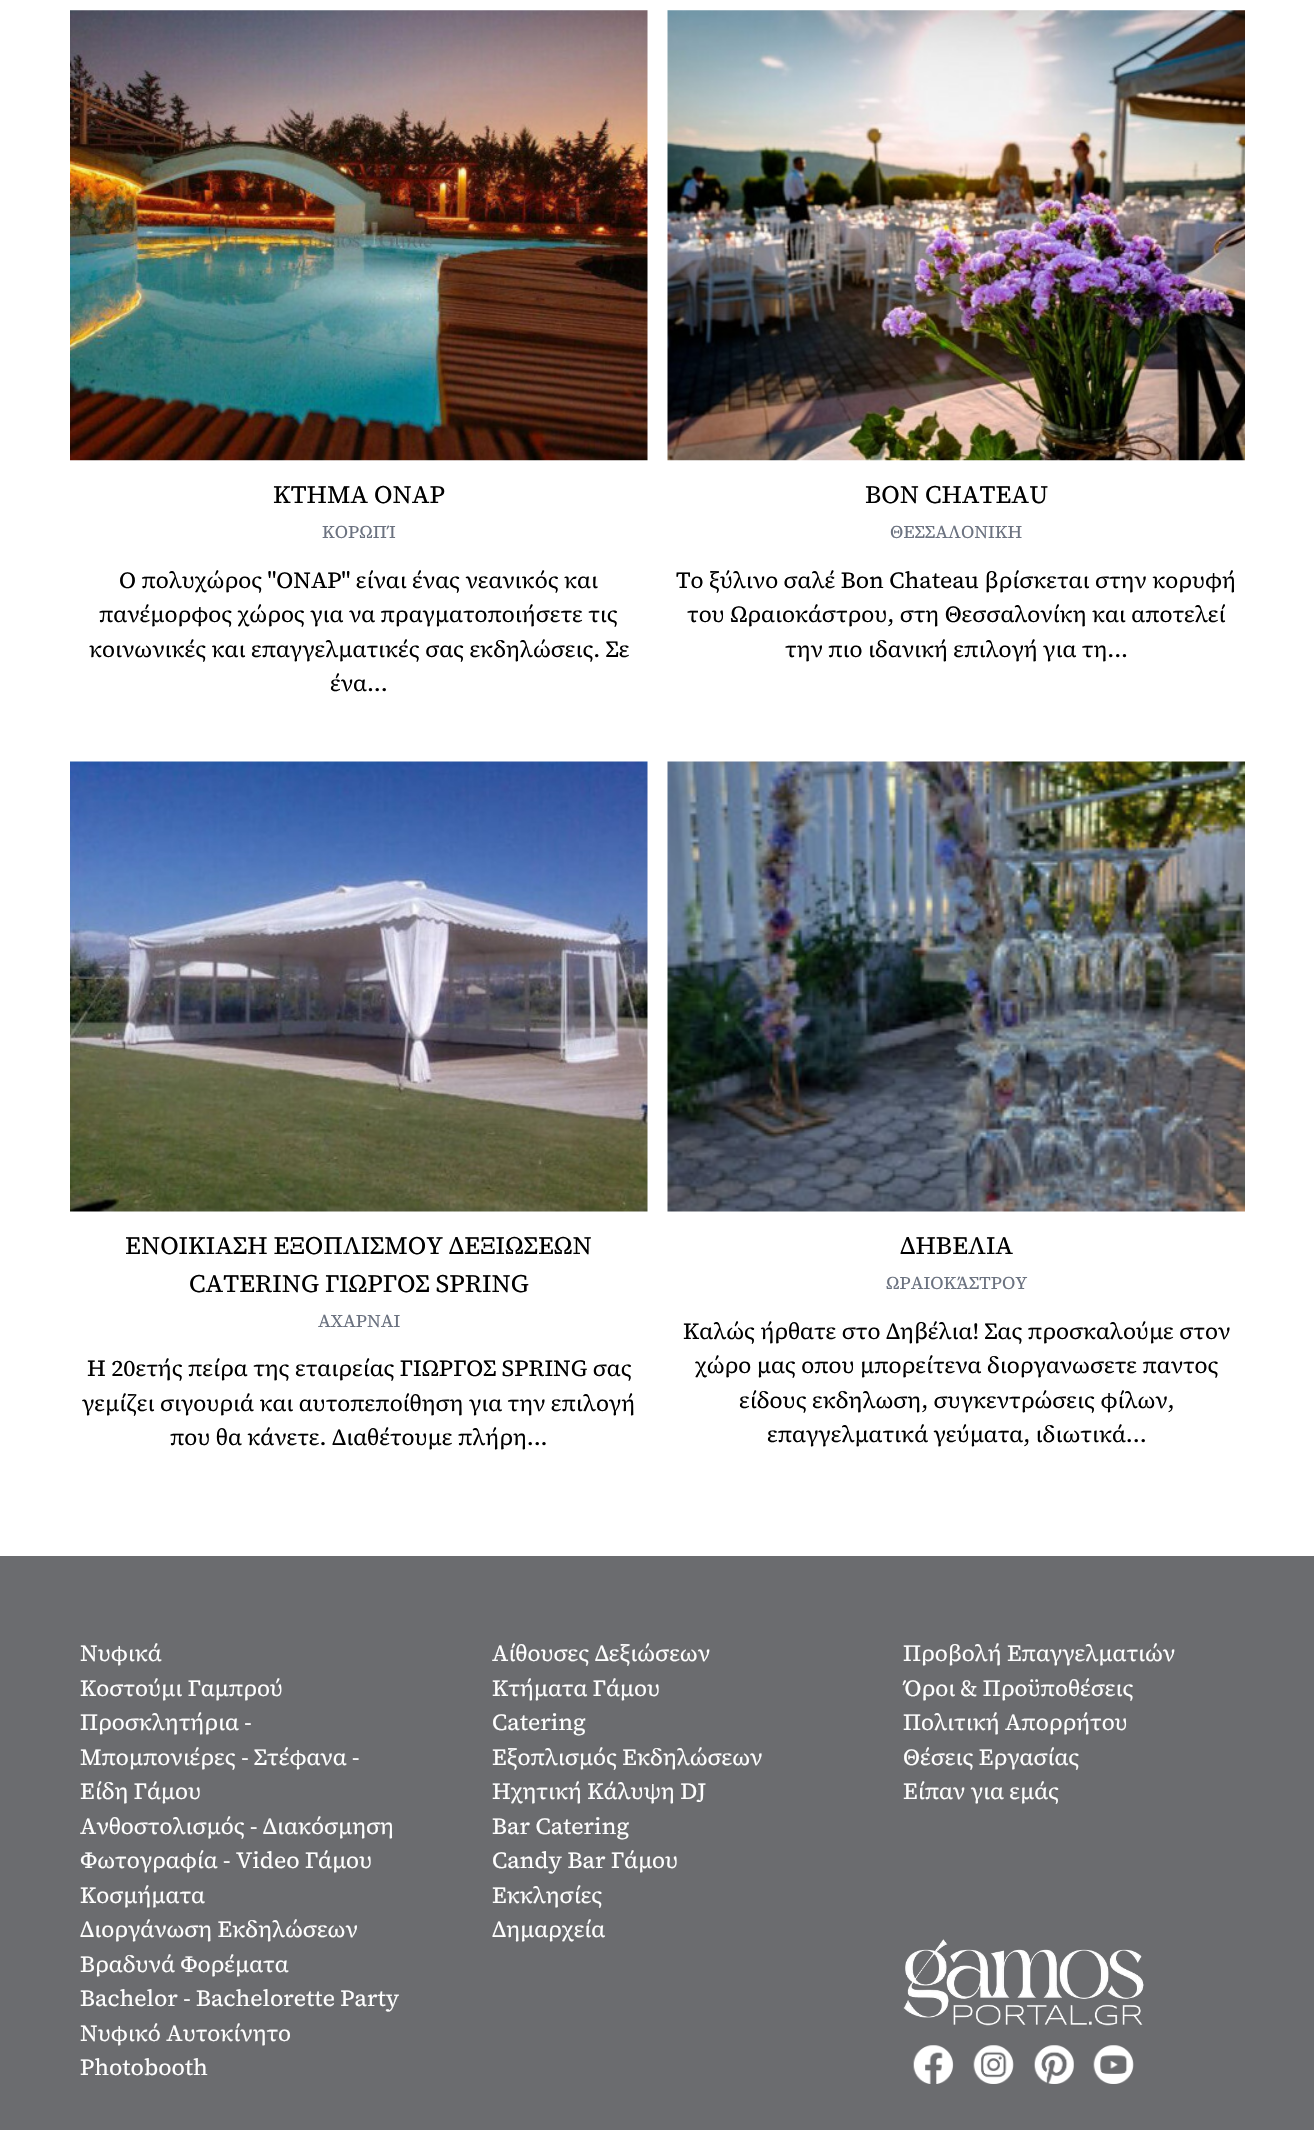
#include "include/core/SkBlurTypes.h"
#include "include/core/SkCanvas.h"
#include "include/core/SkData.h"
#include "include/core/SkFont.h"
#include "include/core/SkFontMgr.h"
#include "include/core/SkImage.h"
#include "include/core/SkMaskFilter.h"
#include "include/core/SkPaint.h"
#include "include/core/SkPathBuilder.h"
#include "include/core/SkTextBlob.h"
#include "include/effects/SkDashPathEffect.h"
#include "include/effects/SkGradientShader.h"
#include "include/utils/SkParsePath.h"

extern sk_sp<SkFontMgr> fontMgr;

void draw(SkCanvas* canvas) {
    SkPaint p;
    p.setAntiAlias(true);
    auto font = [&](const char* family, int weight, float size, bool italic = false) {
        SkFontStyle style(weight, SkFontStyle::kNormal_Width,
            italic ? SkFontStyle::kItalic_Slant : SkFontStyle::kUpright_Slant);
        SkFont result(fontMgr->matchFamilyStyle(family, style), size);
        result.setSubpixel(true);
        return result;
    };
    auto drawPhoto = [&](const char* path, float l, float t, float r, float b) {
        auto image = SkImages::DeferredFromEncodedData(SkData::MakeFromFileName(path));
        canvas->drawImageRect(image, SkRect::MakeLTRB(l, t, r, b), SkSamplingOptions());
    };
    canvas->clear(0xFFFFFFFF);
    drawPhoto("media/1.png", 70, 10, 648, 461);
    auto font1 = font("Source Serif 4", 400, 25);
    p.setColor(0xFF000000);
    canvas->drawString("ΚΤΗΜΑ ΟΝΑΡ", 273, 503, font1, p);
    auto font2 = font("Source Serif 4", 400, 18);
    p.setColor(0xFF6B7280);
    canvas->drawString("ΚΟΡΩΠΊ", 322, 538, font2, p);
    auto font3 = font("Source Serif 4", 400, 23);
    p.setColor(0xFF000000);
    {
        const struct { const char* s; float x, y; } items[] = {
            {"O πολυχώρος \"ΟΝΑΡ\" είναι ένας νεανικός και", 119, 588},
            {"πανέμορφος χώρος για να πραγματοποιήσετε τις", 99, 622},
            {"κοινωνικές και επαγγελματικές σας εκδηλώσεις. Σε", 89, 657},
            {"ένα...", 330, 691},
        };
        for (auto [s, x, y] : items) {
            canvas->drawString(s, x, y, font3, p);
        }
    }
    drawPhoto("media/2.png", 667, 10, 1245, 461);
    canvas->drawString("BON CHATEAU", 865, 503, font1, p);
    p.setColor(0xFF6B7280);
    canvas->drawString("ΘΕΣΣΑΛΟΝΙΚΗ", 890, 538, font2, p);
    p.setColor(0xFF000000);
    {
        const struct { const char* s; float x, y; } items[] = {
            {"Το ξύλινο σαλέ Bon Chateau βρίσκεται στην κορυφή", 676, 588},
            {"του Ωραιοκάστρου, στη Θεσσαλονίκη και αποτελεί", 687, 622},
            {"την πιο ιδανική επιλογή για τη...", 785, 657},
        };
        for (auto [s, x, y] : items) {
            canvas->drawString(s, x, y, font3, p);
        }
    }
    drawPhoto("media/3.png", 70, 761, 648, 1212);
    canvas->drawString("ΕΝΟΙΚΙΑΣΗ ΕΞΟΠΛΙΣΜΟΥ ΔΕΞΙΩΣΕΩΝ", 125, 1254, font1, p);
    canvas->drawString("CATERING ΓΙΩΡΓΟΣ SPRING", 189, 1292, font1, p);
    p.setColor(0xFF6B7280);
    canvas->drawString("ΑΧΑΡΝΑΙ", 318, 1327, font2, p);
    p.setColor(0xFF000000);
    {
        const struct { const char* s; float x, y; } items[] = {
            {"Η 20ετής πείρα της εταιρείας ΓΙΩΡΓΟΣ SPRING σας", 87, 1376},
            {"γεμίζει σιγουριά και αυτοπεποίθηση για την επιλογή", 82, 1411},
            {"που θα κάνετε. Διαθέτουμε πλήρη...", 170, 1445},
        };
        for (auto [s, x, y] : items) {
            canvas->drawString(s, x, y, font3, p);
        }
    }
    drawPhoto("media/4.png", 667, 761, 1245, 1212);
    canvas->drawString("ΔΗΒΕΛΙΑ", 900, 1254, font1, p);
    p.setColor(0xFF6B7280);
    canvas->drawString("ΩΡΑΙΟΚΆΣΤΡΟΥ", 886, 1289, font2, p);
    p.setColor(0xFF000000);
    {
        const struct { const char* s; float x, y; } items[] = {
            {"Καλώς ήρθατε στο Δηβέλια! Σας προσκαλούμε στον", 683, 1339},
            {"χώρο μας οπου μπορείτενα διοργανωσετε παντος", 695, 1373},
            {"είδους εκδηλωση, συγκεντρώσεις φίλων,", 739, 1408},
            {"επαγγελματικά γεύματα, ιδιωτικά...", 767, 1442},
        };
        for (auto [s, x, y] : items) {
            canvas->drawString(s, x, y, font3, p);
        }
    }
    p.setColor(0xFF6B6C6F);
    canvas->drawRect(SkRect::MakeLTRB(0, 1556, 1314, 2130), p);
    p.setColor(0xFFFFFFFF);
    {
        const struct { const char* s; float x, y; } items[] = {
            {"Νυφικά", 80, 1661},
            {"Κοστούμι Γαμπρού", 80, 1696},
            {"Προσκλητήρια -", 80, 1730},
            {"Μπομπονιέρες - Στέφανα -", 80, 1765},
            {"Είδη Γάμου", 80, 1799},
            {"Ανθοστολισμός - Διακόσμηση", 80, 1834},
            {"Φωτογραφία - Video Γάμου", 80, 1868},
            {"Κοσμήματα", 80, 1903},
            {"Διοργάνωση Εκδηλώσεων", 80, 1937},
            {"Βραδυνά Φορέματα", 80, 1972},
            {"Bachelor - Bachelorette Party", 80, 2006},
            {"Νυφικό Αυτοκίνητο", 80, 2041},
            {"Photobooth", 80, 2075},
            {"Αίθουσες Δεξιώσεων", 492, 1661},
            {"Κτήματα Γάμου", 492, 1696},
            {"Catering", 492, 1730},
            {"Εξοπλισμός Εκδηλώσεων", 492, 1765},
            {"Ηχητική Κάλυψη DJ", 492, 1799},
            {"Bar Catering", 492, 1834},
            {"Candy Bar Γάμου", 492, 1868},
            {"Εκκλησίες", 492, 1903},
            {"Δημαρχεία", 492, 1937},
            {"Προβολή Επαγγελματιών", 903, 1661},
            {"Όροι & Προϋποθέσεις", 903, 1696},
            {"Πολιτική Απορρήτου", 903, 1730},
            {"Θέσεις Εργασίας", 903, 1765},
            {"Είπαν για εμάς", 903, 1799},
        };
        for (auto [s, x, y] : items) {
            canvas->drawString(s, x, y, font3, p);
        }
    }
    drawPhoto("media/5.png", 903, 1939, 1144, 2026);
    drawPhoto("media/6.png", 913, 2045, 954, 2084);
    drawPhoto("media/7.png", 973, 2045, 1014, 2084);
    drawPhoto("media/8.png", 1034, 2045, 1074, 2084);
    drawPhoto("media/9.png", 1093, 2045, 1134, 2084);
}
